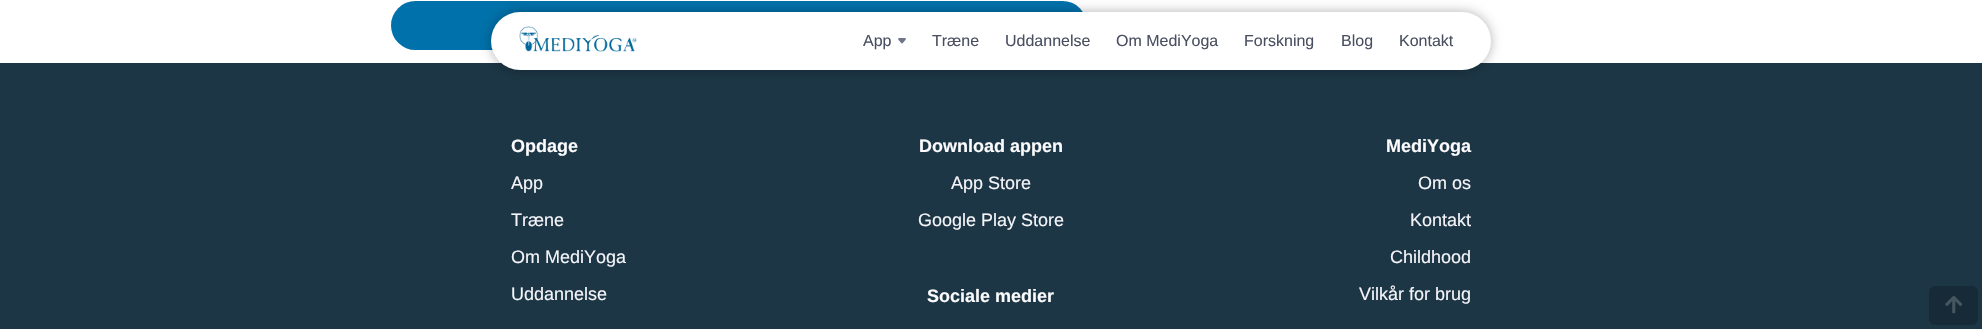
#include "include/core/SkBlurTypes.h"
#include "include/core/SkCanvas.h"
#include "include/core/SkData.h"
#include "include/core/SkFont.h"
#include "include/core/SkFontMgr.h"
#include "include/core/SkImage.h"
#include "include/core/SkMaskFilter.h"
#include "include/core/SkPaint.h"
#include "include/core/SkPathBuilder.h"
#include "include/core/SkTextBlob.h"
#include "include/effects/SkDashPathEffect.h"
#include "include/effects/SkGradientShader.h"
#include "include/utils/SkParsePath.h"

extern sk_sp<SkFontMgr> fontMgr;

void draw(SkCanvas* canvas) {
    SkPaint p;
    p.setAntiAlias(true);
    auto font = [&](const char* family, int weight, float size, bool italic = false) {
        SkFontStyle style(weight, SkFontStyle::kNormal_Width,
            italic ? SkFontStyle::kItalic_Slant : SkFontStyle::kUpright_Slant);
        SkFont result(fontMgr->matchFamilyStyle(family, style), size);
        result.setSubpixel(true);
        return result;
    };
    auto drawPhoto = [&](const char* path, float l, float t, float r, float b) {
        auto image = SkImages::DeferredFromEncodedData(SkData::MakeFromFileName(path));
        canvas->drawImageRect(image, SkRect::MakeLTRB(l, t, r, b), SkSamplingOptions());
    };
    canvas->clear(0xFFFFFFFF);
    p.setColor(0xFF0071AA);
    canvas->drawRoundRect(SkRect::MakeLTRB(391, 1, 1087, 50), 24.5f, 24.5f, p);
    p.setColor(0xFF1C3645);
    canvas->drawRect(SkRect::MakeLTRB(0, 63, 1982, 329), p);
    p.setColor(0x4D000000);
    p.setMaskFilter(SkMaskFilter::MakeBlur(kNormal_SkBlurStyle, 6));
    canvas->drawRoundRect(SkRect::MakeLTRB(491, 12, 1491, 70), 29, 29, p);
    p.setMaskFilter(nullptr);
    p.setColor(0xFFFFFFFF);
    canvas->drawRoundRect(SkRect::MakeLTRB(491, 12, 1491, 70), 29, 29, p);
    drawPhoto("media/1.png", 519, 26, 637, 52);
    auto font1 = font("Liberation Sans", 400, 16);
    p.setColor(0xFF494F60);
    canvas->drawString("App", 863, 46, font1, p);
    drawPhoto("media/2.png", 898, 38, 906, 44);
    {
        const struct { const char* s; float x, y; } items[] = {
            {"Træne", 932, 46},
            {"Uddannelse", 1005, 46},
            {"Om MediYoga", 1116, 46},
            {"Forskning", 1244, 46},
            {"Blog", 1341, 46},
            {"Kontakt", 1399, 46},
        };
        for (auto [s, x, y] : items) {
            canvas->drawString(s, x, y, font1, p);
        }
    }
    auto font2 = font("Liberation Sans", 700, 18);
    p.setColor(0xFFFBFBFD);
    canvas->drawString("Opdage", 511, 152, font2, p);
    auto font3 = font("Liberation Sans", 400, 18);
    p.setColor(0xFFF5F5F9);
    {
        const struct { const char* s; float x, y; } items[] = {
            {"App", 511, 189},
            {"Træne", 511, 226},
            {"Om MediYoga", 511, 263},
            {"Uddannelse", 511, 300},
        };
        for (auto [s, x, y] : items) {
            canvas->drawString(s, x, y, font3, p);
        }
    }
    p.setColor(0xFFFBFBFD);
    canvas->drawString("Download appen", 919, 152, font2, p);
    p.setColor(0xFFF5F5F9);
    canvas->drawString("App Store", 951, 189, font3, p);
    canvas->drawString("Google Play Store", 918, 226, font3, p);
    p.setColor(0xFFFBFBFD);
    canvas->drawString("MediYoga", 1386, 152, font2, p);
    p.setColor(0xFFF5F5F9);
    {
        const struct { const char* s; float x, y; } items[] = {
            {"Om os", 1418, 189},
            {"Kontakt", 1410, 226},
            {"Childhood", 1390, 263},
            {"Vilkår for brug", 1359, 300},
        };
        for (auto [s, x, y] : items) {
            canvas->drawString(s, x, y, font3, p);
        }
    }
    p.setColor(0xFFFBFBFD);
    canvas->drawString("Sociale medier", 927, 302, font2, p);
    p.setColor(0xFF162B37);
    canvas->drawRoundRect(SkRect::MakeLTRB(1929, 286, 1978, 325), 6, 6, p);
    drawPhoto("media/3.png", 1945, 295, 1963, 314);
}
